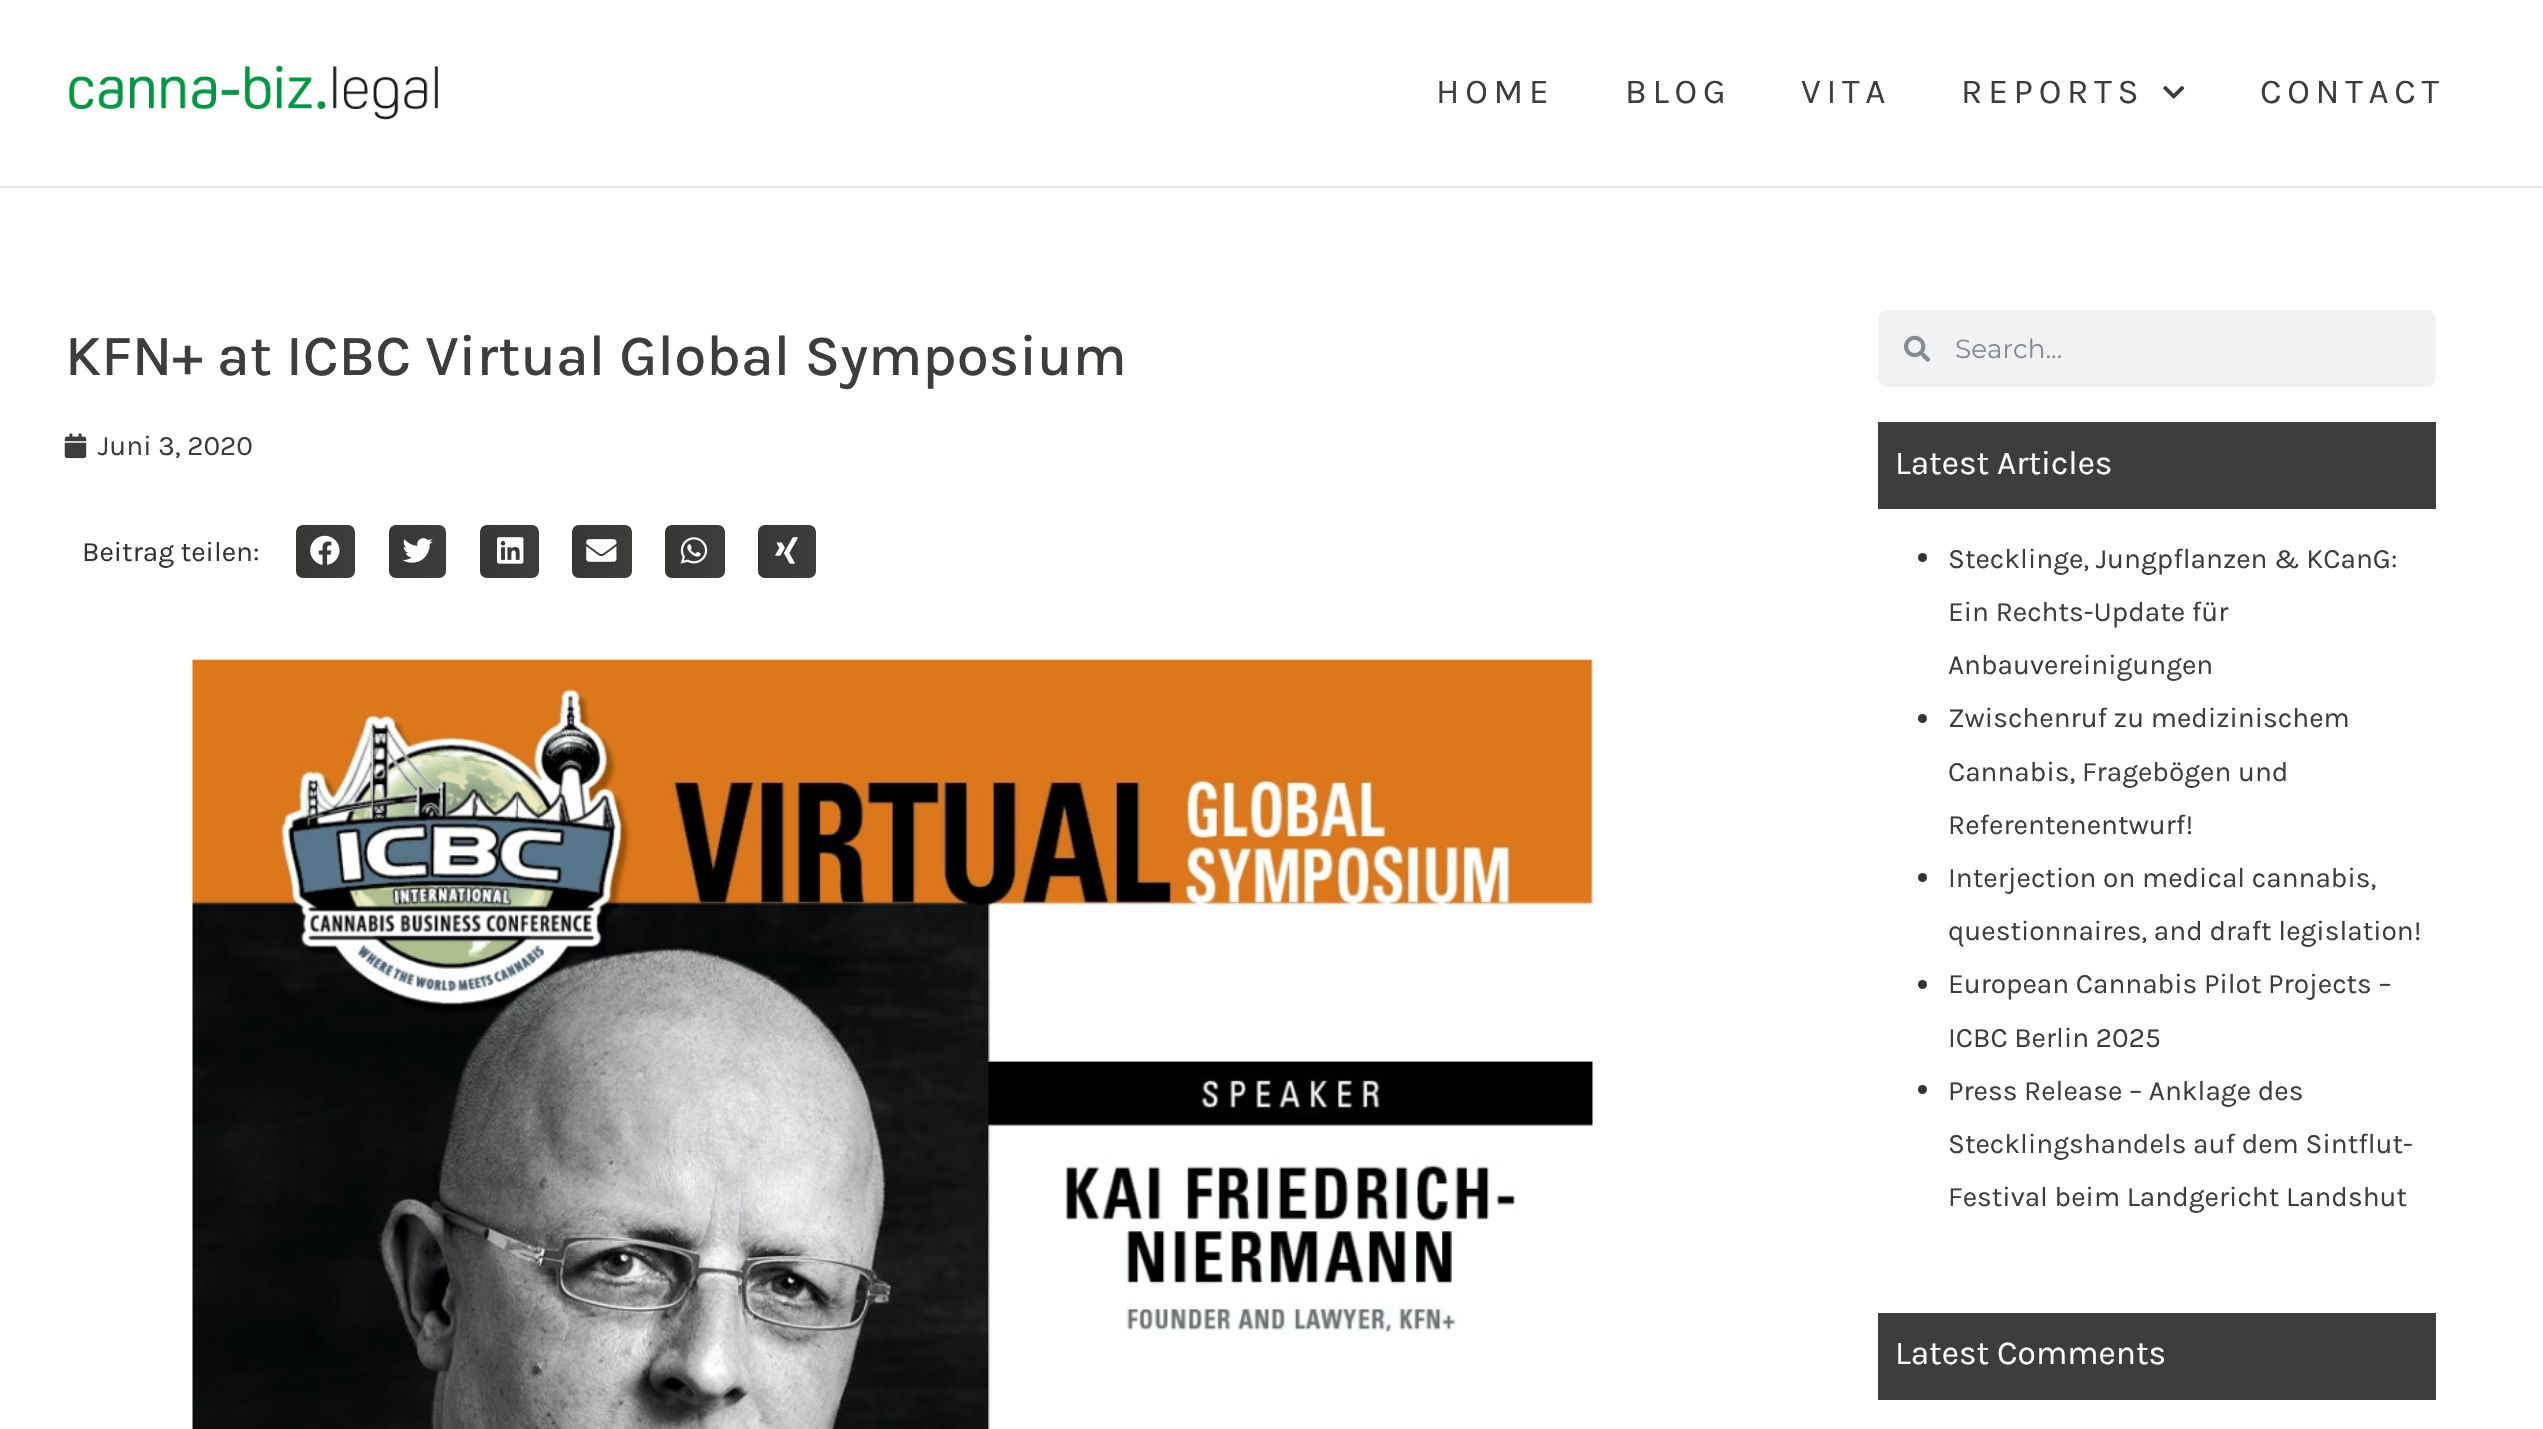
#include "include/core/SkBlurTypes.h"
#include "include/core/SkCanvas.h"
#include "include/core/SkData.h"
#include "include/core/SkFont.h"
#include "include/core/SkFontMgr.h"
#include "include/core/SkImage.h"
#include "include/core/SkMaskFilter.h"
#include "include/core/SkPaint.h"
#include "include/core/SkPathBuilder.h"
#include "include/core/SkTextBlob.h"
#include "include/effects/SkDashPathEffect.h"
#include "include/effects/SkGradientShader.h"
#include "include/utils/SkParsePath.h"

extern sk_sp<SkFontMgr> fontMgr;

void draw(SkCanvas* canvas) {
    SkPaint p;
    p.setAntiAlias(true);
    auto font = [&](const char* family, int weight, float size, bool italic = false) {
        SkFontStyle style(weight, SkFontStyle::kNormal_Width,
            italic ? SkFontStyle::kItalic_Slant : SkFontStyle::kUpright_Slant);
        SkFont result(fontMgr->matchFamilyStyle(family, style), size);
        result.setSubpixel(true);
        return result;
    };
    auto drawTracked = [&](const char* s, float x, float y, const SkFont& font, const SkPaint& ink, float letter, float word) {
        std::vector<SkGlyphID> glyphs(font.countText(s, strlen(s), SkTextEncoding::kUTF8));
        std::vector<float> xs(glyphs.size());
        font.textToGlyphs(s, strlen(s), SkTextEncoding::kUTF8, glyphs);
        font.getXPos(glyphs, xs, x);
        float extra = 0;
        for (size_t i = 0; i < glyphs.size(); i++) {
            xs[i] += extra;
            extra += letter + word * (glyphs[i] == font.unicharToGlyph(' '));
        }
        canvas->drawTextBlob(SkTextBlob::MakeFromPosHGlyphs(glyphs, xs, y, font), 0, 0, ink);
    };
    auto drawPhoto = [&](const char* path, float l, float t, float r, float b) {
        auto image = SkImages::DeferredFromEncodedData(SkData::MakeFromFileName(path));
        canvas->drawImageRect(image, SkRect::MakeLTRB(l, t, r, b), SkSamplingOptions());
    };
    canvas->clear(0xFFFFFFFF);
    p.setColor(0xFFE9E9E9);
    canvas->drawRect(SkRect::MakeLTRB(0, 186, 2543, 188), p);
    drawPhoto("media/1.png", 69, 65, 438, 120);
    auto font1 = font("Karla", 400, 35);
    p.setColor(0xFF3D3D3B);
    {
        const struct { const char* s; float x, y; } items[] = {
            {"HOME", 1436, 103},
            {"BLOG", 1625, 103},
            {"VITA", 1801, 103},
            {"REPORTS", 1961, 103},
        };
        for (auto [s, x, y] : items) {
            drawTracked(s, x, y, font1, p, 5.75f, 0);
        }
    }
    drawPhoto("media/2.png", 2163, 86, 2185, 99);
    drawTracked("CONTACT", 2260, 103, font1, p, 5.75f, 0);
    auto font2 = font("Karla", 500, 57.75f);
    canvas->drawString("KFN+ at ICBC Virtual Global Symposium", 65, 375, font2, p);
    drawPhoto("media/3.png", 64, 433, 87, 459);
    auto font3 = font("Karla", 400, 28);
    canvas->drawString("Juni 3, 2020", 98, 455, font3, p);
    p.setColor(0xFF333333);
    canvas->drawString("Beitrag teilen:", 82, 561, font3, p);
    p.setColor(0xFF3D3D3B);
    canvas->drawRoundRect(SkRect::MakeLTRB(296, 525, 355, 578), 7, 7, p);
    {
        const SkColor colors[] = {0x1F000000, 0x00000000};
        const float stops[] = {0, 1};
        const SkPoint ends[] = {{296, 551}, {355, 551}};
        p.setShader(SkGradientShader::MakeLinear(ends, colors, stops, 2, SkTileMode::kClamp));
        p.setAlpha(255);
    }
    canvas->drawRoundRect(SkRect::MakeLTRB(296, 525, 355, 578), 7, 7, p);
    drawPhoto("media/4.png", 310, 535, 340, 565);
    p.setShader(nullptr);
    p.setColor(0xFF3D3D3B);
    canvas->drawRoundRect(SkRect::MakeLTRB(389, 525, 446, 578), 7, 7, p);
    {
        const SkColor colors[] = {0x1F000000, 0x00000000};
        const float stops[] = {0, 1};
        const SkPoint ends[] = {{389, 551}, {446, 551}};
        p.setShader(SkGradientShader::MakeLinear(ends, colors, stops, 2, SkTileMode::kClamp));
        p.setAlpha(255);
    }
    canvas->drawRoundRect(SkRect::MakeLTRB(389, 525, 446, 578), 7, 7, p);
    drawPhoto("media/5.png", 402, 538, 433, 563);
    p.setShader(nullptr);
    p.setColor(0xFF3D3D3B);
    canvas->drawRoundRect(SkRect::MakeLTRB(480, 525, 539, 578), 7, 7, p);
    {
        const SkColor colors[] = {0x1F000000, 0x00000000};
        const float stops[] = {0, 1};
        const SkPoint ends[] = {{480, 551}, {539, 551}};
        p.setShader(SkGradientShader::MakeLinear(ends, colors, stops, 2, SkTileMode::kClamp));
        p.setAlpha(255);
    }
    canvas->drawRoundRect(SkRect::MakeLTRB(480, 525, 539, 578), 7, 7, p);
    drawPhoto("media/6.png", 497, 537, 524, 564);
    p.setShader(nullptr);
    p.setColor(0xFF3D3D3B);
    canvas->drawRoundRect(SkRect::MakeLTRB(572, 525, 632, 578), 7, 7, p);
    {
        const SkColor colors[] = {0x1F000000, 0x00000000};
        const float stops[] = {0, 1};
        const SkPoint ends[] = {{572, 551}, {632, 551}};
        p.setShader(SkGradientShader::MakeLinear(ends, colors, stops, 2, SkTileMode::kClamp));
        p.setAlpha(255);
    }
    canvas->drawRoundRect(SkRect::MakeLTRB(572, 525, 632, 578), 7, 7, p);
    drawPhoto("media/7.png", 586, 539, 617, 562);
    p.setShader(nullptr);
    p.setColor(0xFF3D3D3B);
    canvas->drawRoundRect(SkRect::MakeLTRB(665, 525, 725, 578), 7, 7, p);
    {
        const SkColor colors[] = {0x1F000000, 0x00000000};
        const float stops[] = {0, 1};
        const SkPoint ends[] = {{665, 551}, {725, 551}};
        p.setShader(SkGradientShader::MakeLinear(ends, colors, stops, 2, SkTileMode::kClamp));
        p.setAlpha(255);
    }
    canvas->drawRoundRect(SkRect::MakeLTRB(665, 525, 725, 578), 7, 7, p);
    drawPhoto("media/8.png", 680, 537, 708, 564);
    p.setShader(nullptr);
    p.setColor(0xFF3D3D3B);
    canvas->drawRoundRect(SkRect::MakeLTRB(758, 525, 816, 578), 7, 7, p);
    {
        const SkColor colors[] = {0x1F000000, 0x00000000};
        const float stops[] = {0, 1};
        const SkPoint ends[] = {{758, 551}, {816, 551}};
        p.setShader(SkGradientShader::MakeLinear(ends, colors, stops, 2, SkTileMode::kClamp));
        p.setAlpha(255);
    }
    canvas->drawRoundRect(SkRect::MakeLTRB(758, 525, 816, 578), 7, 7, p);
    drawPhoto("media/9.png", 775, 537, 798, 564);
    drawPhoto("media/10.png", 192, 659, 1593, 1429);
    p.setShader(nullptr);
    p.setColor(0xFFF1F2F3);
    canvas->drawRoundRect(SkRect::MakeLTRB(1878, 310, 2436, 387), 9, 9, p);
    drawPhoto("media/11.png", 1904, 335, 1931, 362);
    auto font4 = font("Montserrat", 400, 26.25f);
    p.setColor(0xFF868A8E);
    canvas->drawString("Search...", 1955, 358, font4, p);
    p.setColor(0xFF3D3D3B);
    canvas->drawRect(SkRect::MakeLTRB(1878, 422, 2436, 509), p);
    auto font5 = font("Karla", 400, 33.5f);
    p.setColor(0xFFFFFFFF);
    canvas->drawString("Latest Articles", 1895, 474, font5, p);
    p.setColor(0xFF333333);
    canvas->drawCircle(1922.5f, 557.5f, 4.5f, p);
    p.setColor(0xFF3D3D3B);
    {
        const struct { const char* s; float x, y; } items[] = {
            {"Stecklinge, Jungpflanzen & KCanG:", 1948, 568},
            {"Ein Rechts-Update für", 1948, 621},
            {"Anbauvereinigungen", 1948, 674},
        };
        for (auto [s, x, y] : items) {
            canvas->drawString(s, x, y, font3, p);
        }
    }
    p.setColor(0xFF333333);
    canvas->drawCircle(1922.5f, 718.5f, 4.5f, p);
    p.setColor(0xFF3D3D3B);
    {
        const struct { const char* s; float x, y; } items[] = {
            {"Zwischenruf zu medizinischem", 1948, 727},
            {"Cannabis, Fragebögen und", 1948, 781},
            {"Referentenentwurf!", 1948, 834},
        };
        for (auto [s, x, y] : items) {
            canvas->drawString(s, x, y, font3, p);
        }
    }
    p.setColor(0xFF333333);
    canvas->drawCircle(1922.5f, 877.5f, 4.5f, p);
    p.setColor(0xFF3D3D3B);
    canvas->drawString("Interjection on medical cannabis,", 1948, 887, font3, p);
    canvas->drawString("questionnaires, and draft legislation!", 1948, 940, font3, p);
    p.setColor(0xFF333333);
    canvas->drawCircle(1922.5f, 984.5f, 4.5f, p);
    p.setColor(0xFF3D3D3B);
    canvas->drawString("European Cannabis Pilot Projects –", 1948, 993, font3, p);
    canvas->drawString("ICBC Berlin 2025", 1948, 1047, font3, p);
    p.setColor(0xFF333333);
    canvas->drawCircle(1922.5f, 1089.5f, 4.5f, p);
    p.setColor(0xFF3D3D3B);
    {
        const struct { const char* s; float x, y; } items[] = {
            {"Press Release – Anklage des", 1948, 1100},
            {"Stecklingshandels auf dem Sintflut-", 1948, 1153},
            {"Festival beim Landgericht Landshut", 1948, 1206},
        };
        for (auto [s, x, y] : items) {
            canvas->drawString(s, x, y, font3, p);
        }
    }
    canvas->drawRect(SkRect::MakeLTRB(1878, 1313, 2436, 1400), p);
    p.setColor(0xFFFFFFFF);
    canvas->drawString("Latest Comments", 1895, 1364, font5, p);
}
